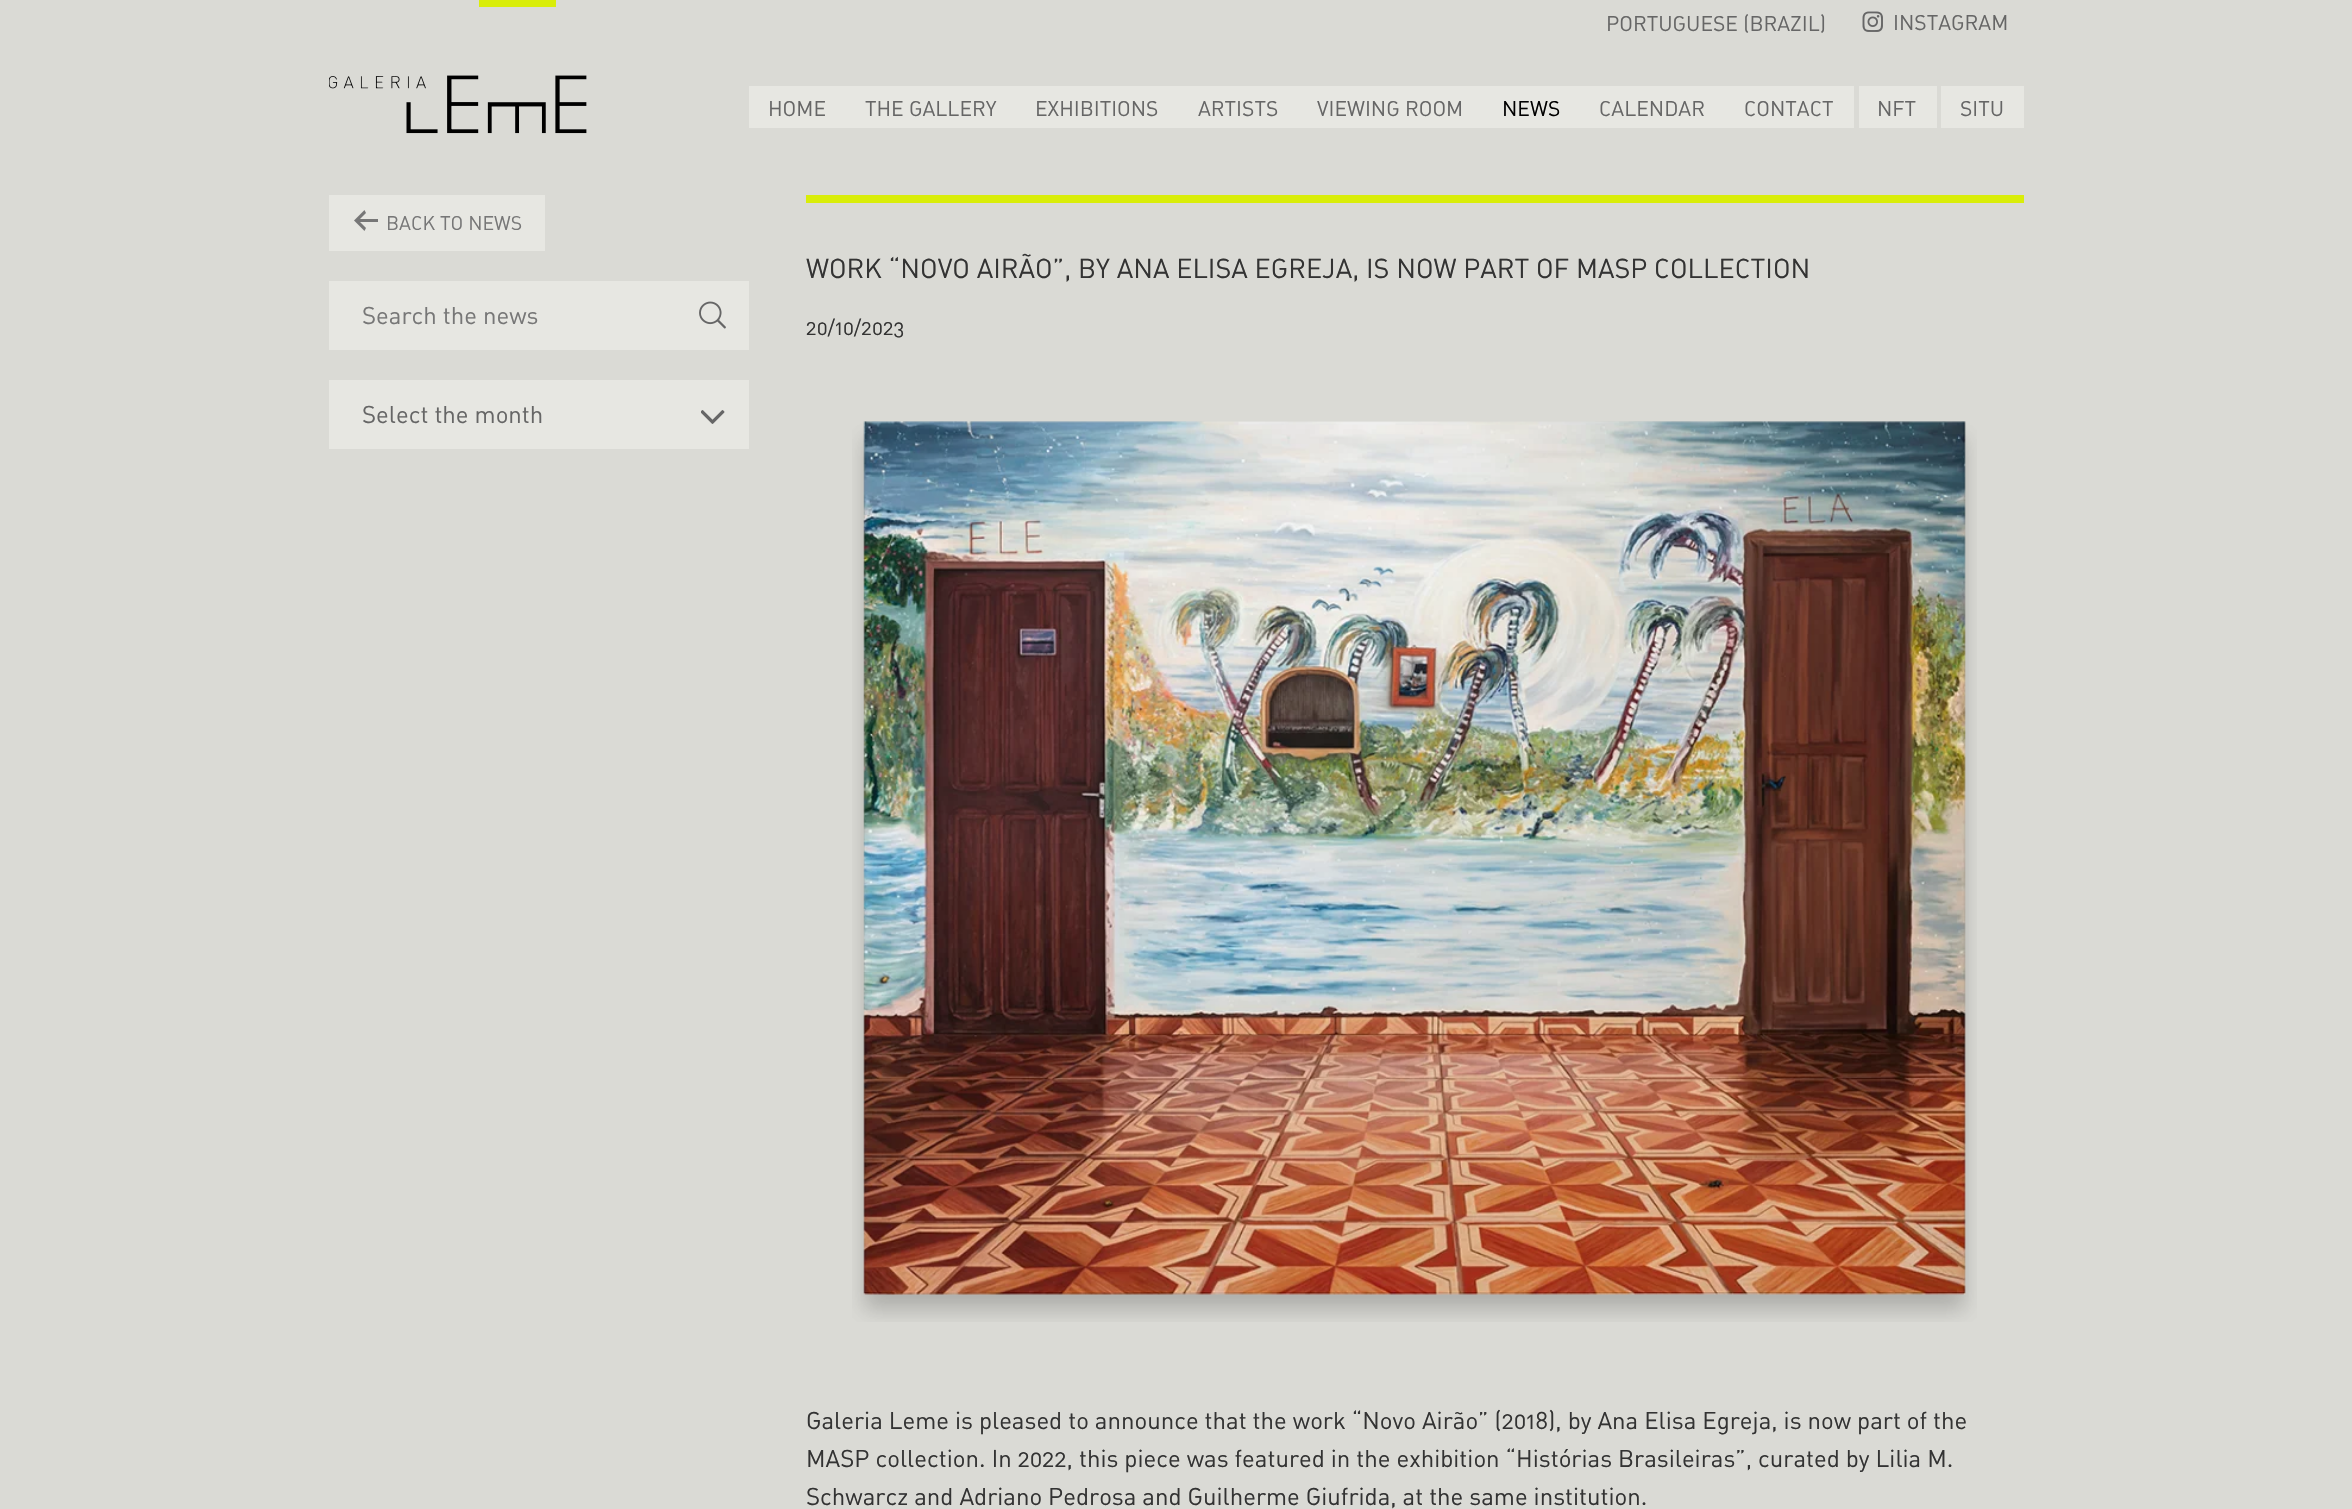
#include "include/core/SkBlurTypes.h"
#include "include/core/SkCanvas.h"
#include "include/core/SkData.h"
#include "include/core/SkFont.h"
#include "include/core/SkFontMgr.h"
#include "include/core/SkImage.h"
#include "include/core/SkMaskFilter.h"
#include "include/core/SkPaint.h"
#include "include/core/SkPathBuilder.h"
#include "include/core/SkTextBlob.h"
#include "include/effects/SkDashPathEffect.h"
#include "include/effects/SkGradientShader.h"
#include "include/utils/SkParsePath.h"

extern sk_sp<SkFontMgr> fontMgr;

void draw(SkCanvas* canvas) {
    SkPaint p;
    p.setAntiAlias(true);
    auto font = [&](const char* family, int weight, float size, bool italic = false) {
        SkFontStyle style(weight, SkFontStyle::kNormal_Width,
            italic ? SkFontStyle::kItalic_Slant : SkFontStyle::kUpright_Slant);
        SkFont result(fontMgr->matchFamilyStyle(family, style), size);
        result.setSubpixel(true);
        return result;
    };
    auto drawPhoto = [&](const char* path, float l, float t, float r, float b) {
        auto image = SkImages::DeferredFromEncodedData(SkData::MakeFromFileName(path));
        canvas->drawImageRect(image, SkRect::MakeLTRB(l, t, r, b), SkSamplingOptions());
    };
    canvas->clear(0xFFDADAD5);
    drawPhoto("media/1.png", 329, 0, 587, 134);
    auto font1 = font("DIN", 400, 21);
    p.setColor(0xFF666666);
    canvas->drawString("PORTUGUESE (BRAZIL)", 1606, 31, font1, p);
    drawPhoto("media/2.png", 1862, 11, 1883, 32);
    canvas->drawString("INSTAGRAM", 1893, 30, font1, p);
    p.setColor(0xFFE7E7E2);
    canvas->drawRect(SkRect::MakeLTRB(749, 86, 1854, 128), p);
    p.setColor(0xFF666666);
    {
        const struct { const char* s; float x, y; } items[] = {
            {"HOME", 768, 116},
            {"THE GALLERY", 865, 116},
            {"EXHIBITIONS", 1035, 116},
            {"ARTISTS", 1198, 116},
            {"VIEWING ROOM", 1317, 116},
        };
        for (auto [s, x, y] : items) {
            canvas->drawString(s, x, y, font1, p);
        }
    }
    p.setColor(0xFF000000);
    canvas->drawString("NEWS", 1502, 116, font1, p);
    p.setColor(0xFF666666);
    canvas->drawString("CALENDAR", 1599, 116, font1, p);
    canvas->drawString("CONTACT", 1744, 116, font1, p);
    p.setColor(0xFFE7E7E2);
    canvas->drawRect(SkRect::MakeLTRB(1859, 86, 1937, 128), p);
    p.setColor(0xFF666666);
    canvas->drawString("NFT", 1877, 116, font1, p);
    p.setColor(0xFFE7E7E2);
    canvas->drawRect(SkRect::MakeLTRB(1941, 86, 2024, 128), p);
    p.setColor(0xFF666666);
    canvas->drawString("SITU", 1960, 116, font1, p);
    p.setColor(0xFFE7E7E2);
    canvas->drawRect(SkRect::MakeLTRB(329, 195, 545, 251), p);
    drawPhoto("media/3.png", 354, 210, 378, 231);
    auto font2 = font("DIN", 400, 19.5f);
    p.setColor(0xFF777777);
    canvas->drawString("BACK TO NEWS", 386, 230, font2, p);
    p.setColor(0xFFE7E7E2);
    canvas->drawRect(SkRect::MakeLTRB(329, 281, 749, 350), p);
    drawPhoto("media/4.png", 699, 301, 726, 329);
    auto font3 = font("DIN", 400, 24);
    p.setColor(0xFF777777);
    canvas->drawString("Search the news", 362, 324, font3, p);
    p.setColor(0xFFE7E7E2);
    canvas->drawRect(SkRect::MakeLTRB(329, 380, 749, 449), p);
    drawPhoto("media/5.png", 701, 410, 725, 424);
    p.setColor(0xFF666666);
    canvas->drawString("Select the month", 362, 423, font3, p);
    p.setColor(0xFFD9ED09);
    canvas->drawRect(SkRect::MakeLTRB(806, 195, 2024, 203), p);
    auto font4 = font("DIN", 400, 27);
    p.setColor(0xFF333333);
    canvas->drawString("WORK “NOVO AIRÃO”, BY ANA ELISA EGREJA, IS NOW PART OF MASP COLLECTION", 806, 278, font4, p);
    canvas->drawString("20/10/2023", 806, 335, font1, p);
    drawPhoto("media/6.png", 852, 421, 1977, 1322);
    {
        const struct { const char* s; float x, y; } items[] = {
            {"Galeria Leme is pleased to announce that the work “Novo Airão” (2018), by Ana Elisa Egreja, is now part of the", 806, 1429},
            {"MASP collection. In 2022, this piece was featured in the exhibition “Histórias Brasileiras”, curated by Lilia M.", 806, 1467},
            {"Schwarcz and Adriano Pedrosa and Guilherme Giufrida, at the same institution.", 806, 1505},
        };
        for (auto [s, x, y] : items) {
            canvas->drawString(s, x, y, font3, p);
        }
    }
}
